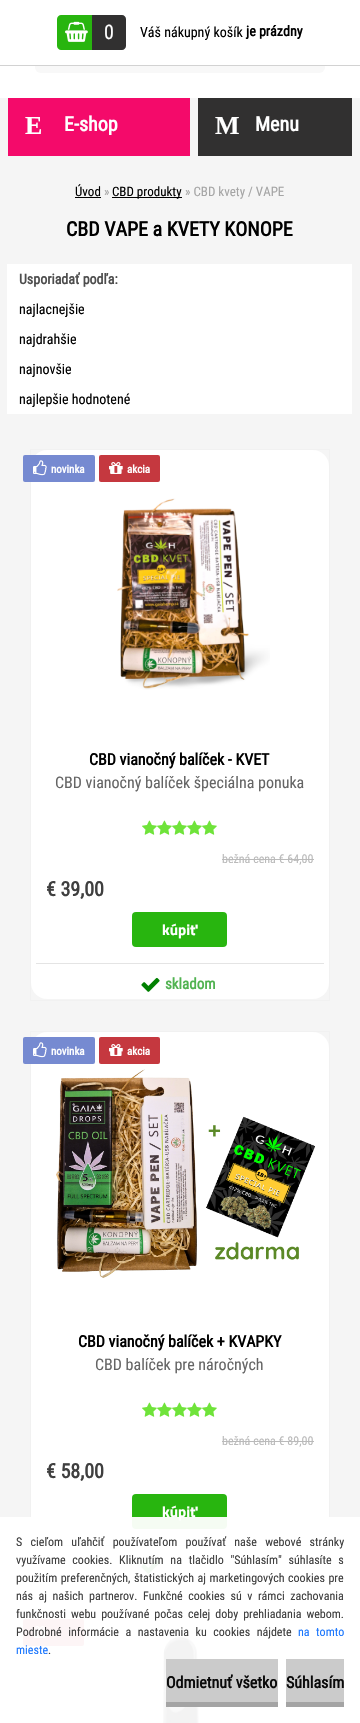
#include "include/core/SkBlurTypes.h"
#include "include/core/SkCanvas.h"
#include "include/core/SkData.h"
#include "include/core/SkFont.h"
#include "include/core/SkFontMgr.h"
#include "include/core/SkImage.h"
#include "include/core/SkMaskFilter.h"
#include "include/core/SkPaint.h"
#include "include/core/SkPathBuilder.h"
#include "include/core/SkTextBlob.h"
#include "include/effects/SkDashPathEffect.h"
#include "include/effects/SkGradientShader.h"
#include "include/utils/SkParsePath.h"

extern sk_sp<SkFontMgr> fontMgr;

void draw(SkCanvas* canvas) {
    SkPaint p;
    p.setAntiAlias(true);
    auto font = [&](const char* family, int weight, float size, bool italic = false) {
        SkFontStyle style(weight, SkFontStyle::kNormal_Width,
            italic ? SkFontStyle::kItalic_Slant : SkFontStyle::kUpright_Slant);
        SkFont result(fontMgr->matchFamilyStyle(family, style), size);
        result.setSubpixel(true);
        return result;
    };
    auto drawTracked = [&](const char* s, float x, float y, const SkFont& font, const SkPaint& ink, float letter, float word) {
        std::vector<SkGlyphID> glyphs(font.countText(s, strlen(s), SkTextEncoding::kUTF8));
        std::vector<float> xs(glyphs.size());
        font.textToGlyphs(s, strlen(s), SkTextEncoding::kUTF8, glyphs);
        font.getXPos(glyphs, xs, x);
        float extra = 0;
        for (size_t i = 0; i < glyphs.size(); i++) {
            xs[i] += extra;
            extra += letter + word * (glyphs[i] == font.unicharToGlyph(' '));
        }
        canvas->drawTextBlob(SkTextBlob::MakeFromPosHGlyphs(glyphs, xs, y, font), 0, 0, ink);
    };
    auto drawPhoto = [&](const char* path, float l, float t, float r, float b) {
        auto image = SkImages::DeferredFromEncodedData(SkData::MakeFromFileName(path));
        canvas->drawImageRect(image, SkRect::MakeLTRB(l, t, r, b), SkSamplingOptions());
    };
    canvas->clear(0xFFFFFFFF);
    p.setColor(0xFFF8F8F8);
    canvas->drawRoundRect(SkRect::MakeLTRB(35, 28, 325, 73), 6, 6, p);
    p.setColor(0xFFFFFFFF);
    canvas->drawRect(SkRect::MakeLTRB(35, 28, 325, 65), p);
    p.setColor(0xFFD2D2D2);
    canvas->drawRect(SkRect::MakeLTRB(0, 65, 360, 66), p);
    p.setColor(0xFF28B50F);
    canvas->drawPath(SkPathBuilder().moveTo(61, 15).lineTo(92, 15).lineTo(92, 50).lineTo(61, 50).cubicTo(59, 50, 57, 48, 57, 46).lineTo(57, 19).cubicTo(57, 17, 59, 15, 61, 15).close().detach(), p);
    drawPhoto("media/1.png", 65, 21, 88, 42);
    p.setColor(0xFF313030);
    canvas->drawPath(SkPathBuilder().moveTo(92, 15).lineTo(122, 15).cubicTo(124, 15, 126, 17, 126, 19).lineTo(126, 46).cubicTo(126, 48, 124, 50, 122, 50).lineTo(92, 50).close().detach(), p);
    auto font1 = font("Roboto Condensed", 400, 20);
    p.setColor(0xFFFFFFFF);
    canvas->drawString("0", 104, 39, font1, p);
    auto font2 = font("Roboto Condensed", 400, 14);
    p.setColor(0xFF000000);
    canvas->drawString("Váš nákupný košík", 140, 37, font2, p);
    auto font3 = font("Roboto Condensed", 700, 14);
    canvas->drawString("je prázdny", 246, 36, font3, p);
    p.setColor(0xFFF5F5F5);
    canvas->drawRect(SkRect::MakeLTRB(0, 98, 360, 1723), p);
    p.setColor(0xFFF40A6A);
    canvas->drawRect(SkRect::MakeLTRB(8, 98, 190, 156), p);
    auto font4 = font("Liberation Serif", 700, 26);
    p.setColor(0xFFFFFFFF);
    canvas->drawString("E", 25, 134, font4, p);
    auto font5 = font("Roboto Condensed", 700, 20);
    canvas->drawString("E-shop", 64, 131, font5, p);
    p.setColor(0xFF313030);
    canvas->drawRect(SkRect::MakeLTRB(198, 98, 352, 156), p);
    p.setColor(0xFFFFFFFF);
    canvas->drawString("M", 215, 134, font4, p);
    canvas->drawString("Menu", 255, 131, font5, p);
    auto font6 = font("Roboto Condensed", 400, 13);
    p.setColor(0xFF000000);
    canvas->drawString("Úvod", 75, 196, font6, p);
    canvas->drawRect(SkRect::MakeLTRB(75, 197, 101, 198), p);
    p.setColor(0xFFA5A5A5);
    canvas->drawString("»", 104, 196, font6, p);
    p.setColor(0xFF000000);
    canvas->drawRect(SkRect::MakeLTRB(112, 197, 182, 198), p);
    canvas->drawString("CBD produkty", 112, 196, font6, p);
    p.setColor(0xFFA5A5A5);
    canvas->drawString("» CBD kvety / VAPE", 185, 196, font6, p);
    p.setColor(0xFF000000);
    canvas->drawString("CBD VAPE a KVETY KONOPE", 66, 236, font5, p);
    p.setColor(0xFFFFFFFF);
    canvas->drawRect(SkRect::MakeLTRB(7, 264, 352, 414), p);
    p.setColor(0xFF4D4D4D);
    canvas->drawString("Usporiadať podľa:", 19, 284, font3, p);
    p.setColor(0xFF000000);
    {
        const struct { const char* s; float x, y; } items[] = {
            {"najlacnejšie", 19, 314},
            {"najdrahšie", 19, 344},
            {"najnovšie", 19, 374},
            {"najlepšie hodnotené", 19, 404},
        };
        for (auto [s, x, y] : items) {
            canvas->drawString(s, x, y, font2, p);
        }
    }
    p.setStyle(SkPaint::kStroke_Style);
    p.setStrokeWidth(1);
    p.setColor(0xFFF1F1F1);
    canvas->drawRect(SkRect::MakeLTRB(30.5f, 449.5f, 329.5f, 1000.5f), p);
    p.setStyle(SkPaint::kFill_Style);
    p.setColor(0xFFFFFFFF);
    canvas->drawRoundRect(SkRect::MakeLTRB(31, 450, 329, 999), 16, 16, p);
    p.setColor(0xFF768AD1);
    canvas->drawRoundRect(SkRect::MakeLTRB(23, 455, 95, 482), 2, 2, p);
    drawPhoto("media/2.png", 33, 460, 47, 476);
    auto font7 = font("Roboto Condensed", 700, 11);
    p.setColor(0xFFFFFFFF);
    canvas->drawString("novinka", 51, 473, font7, p);
    p.setColor(0xFFC5383F);
    canvas->drawRoundRect(SkRect::MakeLTRB(99, 455, 160, 482), 2, 2, p);
    drawPhoto("media/3.png", 109, 462, 123, 474);
    p.setColor(0xFFFFFFFF);
    canvas->drawString("akcia", 127, 473, font7, p);
    drawPhoto("media/4.png", 117, 498, 270, 690);
    auto font8 = font("Roboto Condensed", 700, 16);
    p.setColor(0xFF000000);
    canvas->drawString("CBD vianočný balíček - KVET", 89, 765, font8, p);
    auto font9 = font("Roboto Condensed", 400, 16);
    p.setColor(0xFF656565);
    canvas->drawString("CBD vianočný balíček špeciálna ponuka", 55, 788, font9, p);
    drawPhoto("media/5.png", 142, 820, 157, 835);
    drawPhoto("media/5.png", 157, 820, 172, 835);
    drawPhoto("media/5.png", 172, 820, 187, 835);
    drawPhoto("media/5.png", 187, 820, 202, 835);
    drawPhoto("media/5.png", 202, 820, 217, 835);
    auto font10 = font("Roboto Condensed", 400, 12);
    p.setColor(0xFFBABABA);
    canvas->drawString("bežná cena € 64,00", 222, 863, font10, p);
    canvas->drawRect(SkRect::MakeLTRB(222, 859, 314, 860), p);
    p.setColor(0xFF3F3F3F);
    canvas->drawString("€ 39,00", 46, 896, font5, p);
    p.setColor(0xFF28B50F);
    canvas->drawRoundRect(SkRect::MakeLTRB(132, 912, 227, 947), 4, 4, p);
    auto font11 = font("Titillium Web", 700, 15);
    p.setColor(0xFFFFFFFF);
    canvas->drawString("kúpiť", 162, 935, font11, p);
    p.setColor(0xFFE4E4E4);
    canvas->drawRect(SkRect::MakeLTRB(36, 963, 324, 964), p);
    drawPhoto("media/6.png", 141, 977, 160, 992);
    auto font12 = font("Roboto Condensed", 700, 15);
    p.setColor(0xFF51B351);
    canvas->drawString("skladom", 165, 989, font12, p);
    p.setStyle(SkPaint::kStroke_Style);
    p.setColor(0xFFF1F1F1);
    canvas->drawRect(SkRect::MakeLTRB(30.5f, 1031.5f, 329.5f, 1582.5f), p);
    p.setStyle(SkPaint::kFill_Style);
    p.setColor(0xFFFFFFFF);
    canvas->drawRoundRect(SkRect::MakeLTRB(31, 1032, 329, 1581), 16, 16, p);
    p.setColor(0xFF768AD1);
    canvas->drawRoundRect(SkRect::MakeLTRB(23, 1037, 95, 1064), 2, 2, p);
    drawPhoto("media/2.png", 33, 1042, 47, 1058);
    p.setColor(0xFFFFFFFF);
    canvas->drawString("novinka", 51, 1055, font7, p);
    p.setColor(0xFFC5383F);
    canvas->drawRoundRect(SkRect::MakeLTRB(99, 1037, 160, 1064), 2, 2, p);
    drawPhoto("media/3.png", 109, 1044, 123, 1056);
    p.setColor(0xFFFFFFFF);
    canvas->drawString("akcia", 127, 1055, font7, p);
    drawPhoto("media/7.png", 56, 1069, 315, 1278);
    p.setColor(0xFF000000);
    canvas->drawString("CBD vianočný balíček + KVAPKY", 78, 1347, font8, p);
    p.setColor(0xFF656565);
    canvas->drawString("CBD balíček pre náročných", 95, 1370, font9, p);
    drawPhoto("media/5.png", 142, 1402, 157, 1417);
    drawPhoto("media/5.png", 157, 1402, 172, 1417);
    drawPhoto("media/5.png", 172, 1402, 187, 1417);
    drawPhoto("media/5.png", 187, 1402, 202, 1417);
    drawPhoto("media/5.png", 202, 1402, 217, 1417);
    p.setColor(0xFFBABABA);
    canvas->drawString("bežná cena € 89,00", 222, 1445, font10, p);
    canvas->drawRect(SkRect::MakeLTRB(222, 1441, 314, 1442), p);
    p.setColor(0xFF3F3F3F);
    canvas->drawString("€ 58,00", 46, 1478, font5, p);
    p.setColor(0xFF28B50F);
    canvas->drawRoundRect(SkRect::MakeLTRB(132, 1494, 227, 1529), 4, 4, p);
    p.setColor(0xFFFFFFFF);
    canvas->drawString("kúpiť", 162, 1517, font11, p);
    p.setColor(0xFFE4E4E4);
    canvas->drawRect(SkRect::MakeLTRB(36, 1545, 324, 1546), p);
    drawPhoto("media/6.png", 141, 1559, 160, 1574);
    p.setStyle(SkPaint::kStroke_Style);
    p.setColor(0xFFF1F1F1);
    canvas->drawRect(SkRect::MakeLTRB(30.5f, 1613.5f, 329.5f, 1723.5f), p);
    p.setStyle(SkPaint::kFill_Style);
    p.setColor(0xFFFFFFFF);
    canvas->drawRoundRect(SkRect::MakeLTRB(31, 1614, 329, 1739), 16, 16, p);
    drawPhoto("media/8.png", 162, 1637, 200, 1723);
    p.setColor(0xFFC5383F);
    canvas->drawRoundRect(SkRect::MakeLTRB(23, 1619, 84, 1646), 2, 2, p);
    drawPhoto("media/3.png", 33, 1626, 47, 1638);
    p.setColor(0xF2FFFFFF);
    canvas->drawRect(SkRect::MakeLTRB(0, 1517, 360, 1723), p);
    p.setColor(0xFF3F3F3F);
    drawTracked("S cieľom uľahčiť používateľom používať naše webové stránky", 16, 1546, font10, p, 0, 5.5f);
    drawTracked("využívame cookies. Kliknutím na tlačidlo \"Súhlasím\" súhlasíte s", 16, 1564, font10, p, 0, 4);
    drawTracked("použitím preferenčných, štatistických aj marketingových cookies pre", 16, 1582, font10, p, 0, 0.75f);
    drawTracked("nás aj našich partnerov. Funkčné cookies sú v rámci zachovania", 16, 1600, font10, p, 0, 2.75f);
    drawTracked("funkčnosti webu používané počas celej doby prehliadania webom.", 16, 1618, font10, p, 0, 2.25f);
    drawTracked("Podrobné informácie a nastavenia ku cookies nájdete", 16, 1636, font10, p, 0, 3.75f);
    p.setColor(0xFF1975FD);
    drawTracked("na tomto", 298, 1636, font10, p, 0, 3.75f);
    canvas->drawString("mieste", 16, 1654, font10, p);
    p.setColor(0xFF3F3F3F);
    canvas->drawString(".", 48, 1654, font10, p);
    p.setColor(0xF2C8C8C8);
    canvas->drawRect(SkRect::MakeLTRB(166, 1659, 278, 1702), p);
    p.setColor(0xFFA4A4A4);
    canvas->drawRect(SkRect::MakeLTRB(166, 1702, 278, 1707), p);
    p.setColor(0xFF0A0A0A);
    canvas->drawString("Odmietnuť všetko", 166, 1688, font8, p);
    p.setColor(0xFFCBCBCB);
    canvas->drawRect(SkRect::MakeLTRB(286, 1659, 344, 1702), p);
    p.setColor(0xFFA4A4A4);
    canvas->drawRect(SkRect::MakeLTRB(286, 1702, 344, 1707), p);
    p.setColor(0xFF0A0A0A);
    canvas->drawString("Súhlasím", 286, 1688, font8, p);
}
